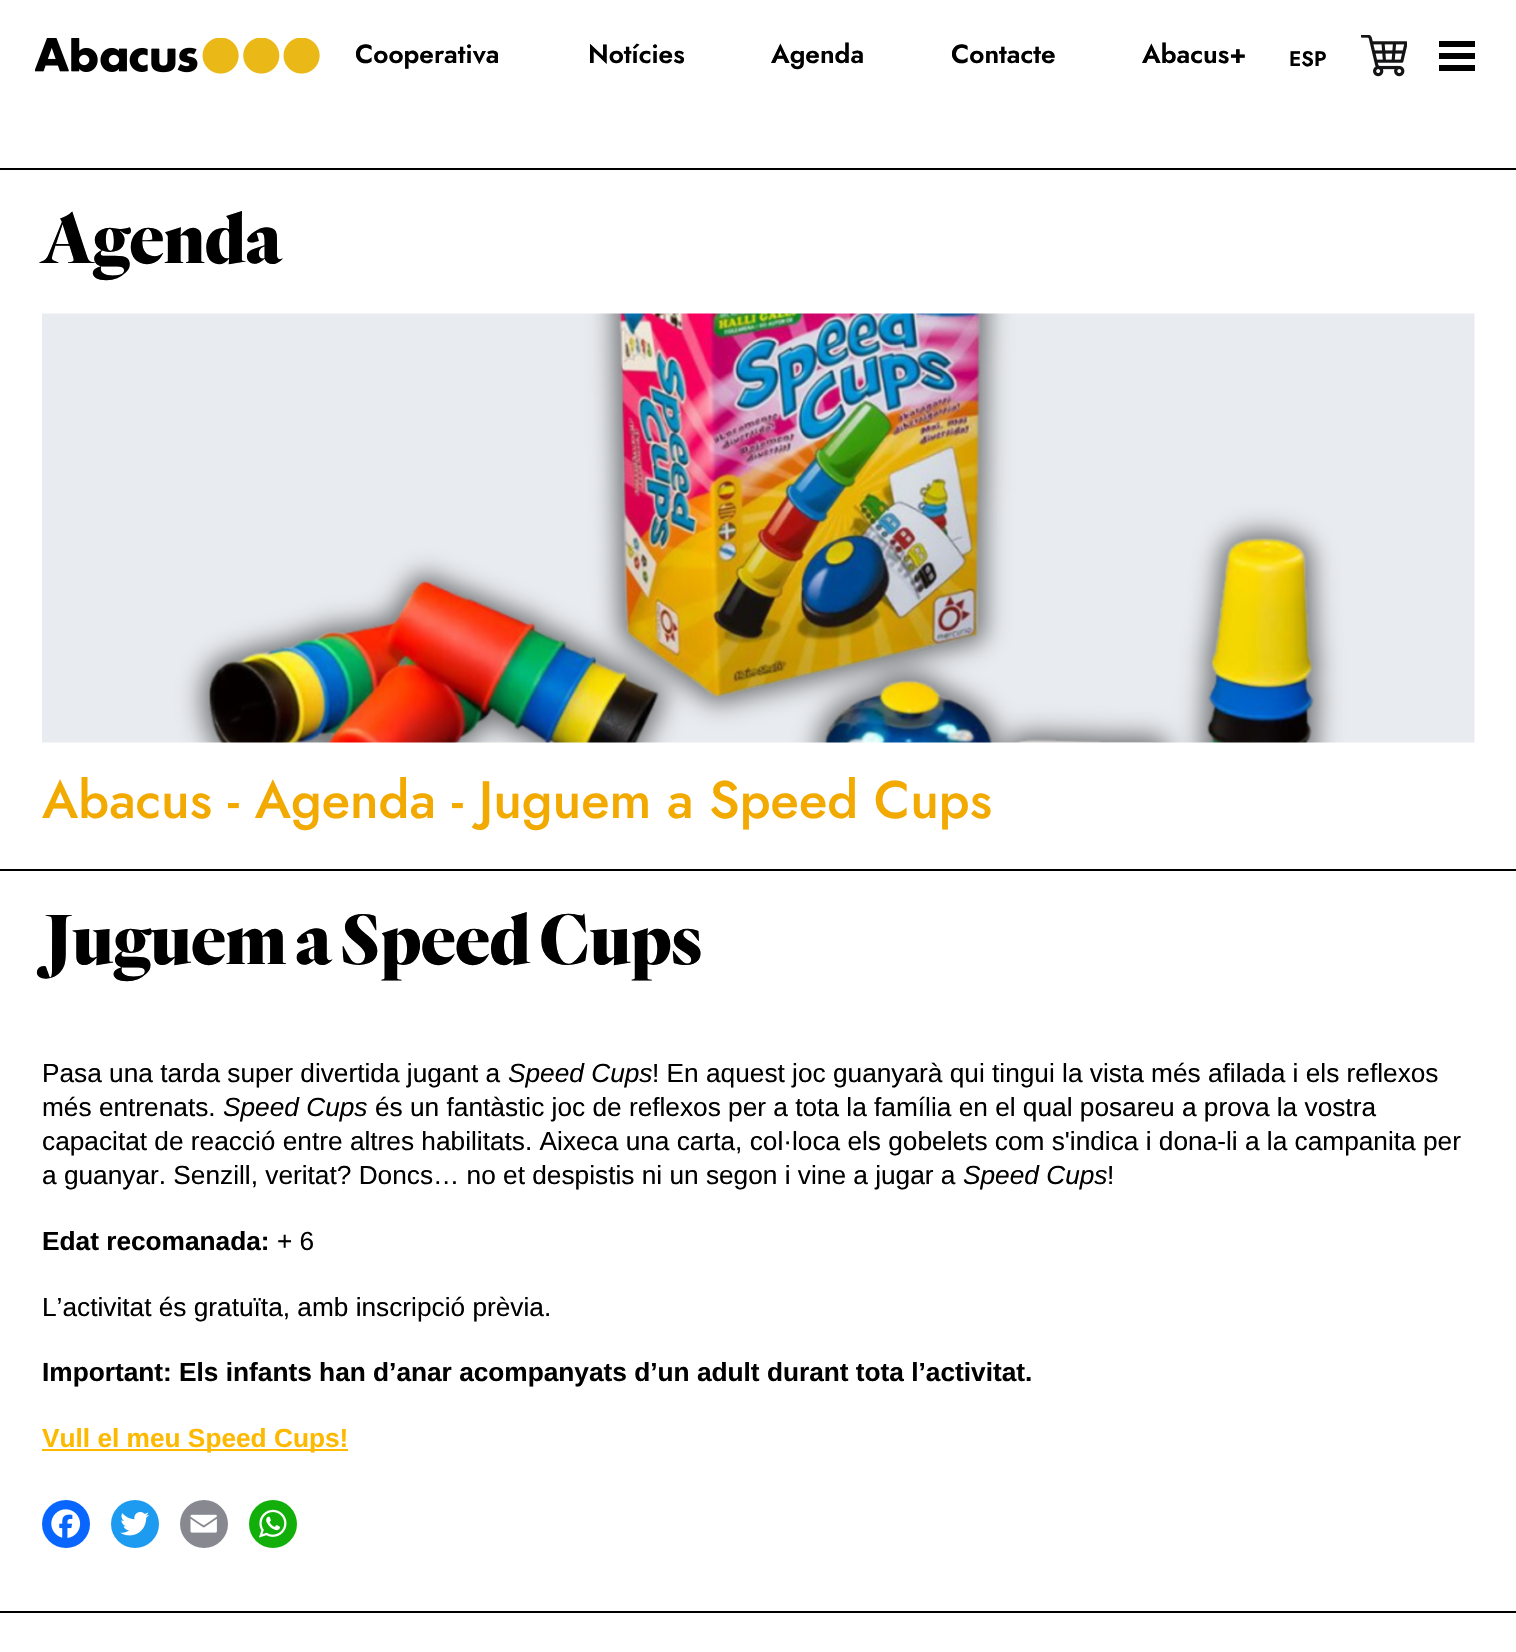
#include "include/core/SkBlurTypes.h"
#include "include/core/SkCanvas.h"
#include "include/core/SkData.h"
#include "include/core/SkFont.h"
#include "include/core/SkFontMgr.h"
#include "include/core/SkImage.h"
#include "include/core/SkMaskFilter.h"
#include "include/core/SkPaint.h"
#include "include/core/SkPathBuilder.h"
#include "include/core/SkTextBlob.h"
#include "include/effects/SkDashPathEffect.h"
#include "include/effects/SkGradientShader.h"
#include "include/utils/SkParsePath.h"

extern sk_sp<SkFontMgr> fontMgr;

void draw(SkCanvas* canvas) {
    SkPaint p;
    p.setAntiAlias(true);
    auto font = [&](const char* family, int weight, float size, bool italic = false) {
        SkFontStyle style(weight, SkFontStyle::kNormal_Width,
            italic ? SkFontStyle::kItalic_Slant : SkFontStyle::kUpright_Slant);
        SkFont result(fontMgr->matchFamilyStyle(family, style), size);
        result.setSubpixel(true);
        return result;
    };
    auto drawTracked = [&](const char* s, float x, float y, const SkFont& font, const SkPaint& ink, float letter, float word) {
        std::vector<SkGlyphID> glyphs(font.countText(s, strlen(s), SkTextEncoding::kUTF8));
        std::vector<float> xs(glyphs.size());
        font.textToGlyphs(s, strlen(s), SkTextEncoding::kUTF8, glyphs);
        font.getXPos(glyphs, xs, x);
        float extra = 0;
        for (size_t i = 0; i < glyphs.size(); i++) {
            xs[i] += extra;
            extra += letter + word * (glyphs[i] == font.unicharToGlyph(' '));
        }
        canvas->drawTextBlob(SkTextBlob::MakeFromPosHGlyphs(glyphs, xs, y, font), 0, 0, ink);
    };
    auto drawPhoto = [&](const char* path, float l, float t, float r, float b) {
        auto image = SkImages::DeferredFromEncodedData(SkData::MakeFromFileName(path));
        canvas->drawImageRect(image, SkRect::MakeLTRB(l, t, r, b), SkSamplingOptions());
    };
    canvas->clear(0xFFFFFFFF);
    drawPhoto("media/1.png", 35, 38, 320, 74);
    auto font1 = font("Jost", 600, 26.25f);
    p.setColor(0xFF000000);
    {
        const struct { const char* s; float x, y; } items[] = {
            {"Cooperativa", 355, 63},
            {"Notícies", 588, 63},
            {"Agenda", 771, 63},
            {"Contacte", 951, 63},
            {"Abacus+", 1142, 63},
        };
        for (auto [s, x, y] : items) {
            canvas->drawString(s, x, y, font1, p);
        }
    }
    auto font2 = font("Jost", 600, 21);
    canvas->drawString("ESP", 1289, 66, font2, p);
    drawPhoto("media/2.png", 1361, 35, 1407, 77);
    {
        const struct { float l, t, r, b; SkColor color; } items[] = {
            {1439, 53, 1475, 59, 0xFF000000},
            {1439, 41, 1475, 47, 0xFF000000},
            {1439, 65, 1475, 71, 0xFF000000},
            {0, 168, 1516, 170, 0xFF000000},
        };
        for (auto [l, t, r, b, color] : items) {
            p.setColor(color);
            canvas->drawRect(SkRect::MakeLTRB(l, t, r, b), p);
        }
    }
    auto font3 = font("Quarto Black", 900, 73.5f);
    drawTracked("Agenda", 42, 263, font3, p, -0.25f, 0);
    drawPhoto("media/3.png", 42, 313, 1475, 743);
    auto font4 = font("Jost", 500, 52.5f);
    p.setColor(0xFFF2A900);
    canvas->drawString("Abacus - Agenda - Juguem a Speed Cups", 42, 818, font4, p);
    p.setColor(0xFF000000);
    canvas->drawRect(SkRect::MakeLTRB(0, 869, 1516, 871), p);
    drawTracked("Juguem a Speed Cups", 42, 964, font3, p, -0.25f, 0);
    auto font5 = font("Liberation Sans", 400, 26.25f);
    canvas->drawString("Pasa una tarda super divertida jugant a", 42, 1082, font5, p);
    auto font6 = font("Liberation Sans", 400, 26.25f, true);
    canvas->drawString("Speed Cups", 508, 1082, font6, p);
    canvas->drawString("! En aquest joc guanyarà qui tingui la vista més afilada i els reflexos", 652, 1082, font5, p);
    canvas->drawString("més entrenats.", 42, 1116, font5, p);
    canvas->drawString("Speed Cups", 223, 1116, font6, p);
    {
        const struct { const char* s; float x, y; } items[] = {
            {"és un fantàstic joc de reflexos per a tota la família en el qual posareu a prova la vostra", 375, 1116},
            {"capacitat de reacció entre altres habilitats. Aixeca una carta, col·loca els gobelets com s'indica i dona-li a la campanita per", 42, 1150},
            {"a guanyar. Senzill, veritat? Doncs… no et despistis ni un segon i vine a jugar a", 42, 1184},
        };
        for (auto [s, x, y] : items) {
            canvas->drawString(s, x, y, font5, p);
        }
    }
    canvas->drawString("Speed Cups", 963, 1184, font6, p);
    canvas->drawString("!", 1107, 1184, font5, p);
    auto font7 = font("Liberation Sans", 700, 26.25f);
    canvas->drawString("Edat recomanada:", 42, 1250, font7, p);
    canvas->drawString("+ 6", 277, 1250, font5, p);
    canvas->drawString("L’activitat és gratuïta, amb inscripció prèvia.", 42, 1316, font5, p);
    canvas->drawString("Important: Els infants han d’anar acompanyats d’un adult durant tota l’activitat.", 42, 1381, font7, p);
    p.setColor(0xFFFCB900);
    canvas->drawRect(SkRect::MakeLTRB(42, 1449, 348, 1451), p);
    canvas->drawString("Vull el meu Speed Cups!", 42, 1447, font7, p);
    p.setColor(0xFF0866FF);
    canvas->drawCircle(66, 1524, 24, p);
    drawPhoto("media/4.png", 51, 1509, 81, 1538);
    p.setColor(0xFF1D9BF0);
    canvas->drawCircle(135, 1524, 24, p);
    drawPhoto("media/5.png", 120, 1512, 149, 1536);
    p.setColor(0xFF888990);
    canvas->drawCircle(204, 1524, 24, p);
    drawPhoto("media/6.png", 190, 1514, 217, 1533);
    p.setColor(0xFF12AF0A);
    canvas->drawCircle(273, 1524, 24, p);
    drawPhoto("media/7.png", 259, 1509, 287, 1538);
    p.setColor(0xFF000000);
    canvas->drawRect(SkRect::MakeLTRB(0, 1611, 1516, 1613), p);
}
